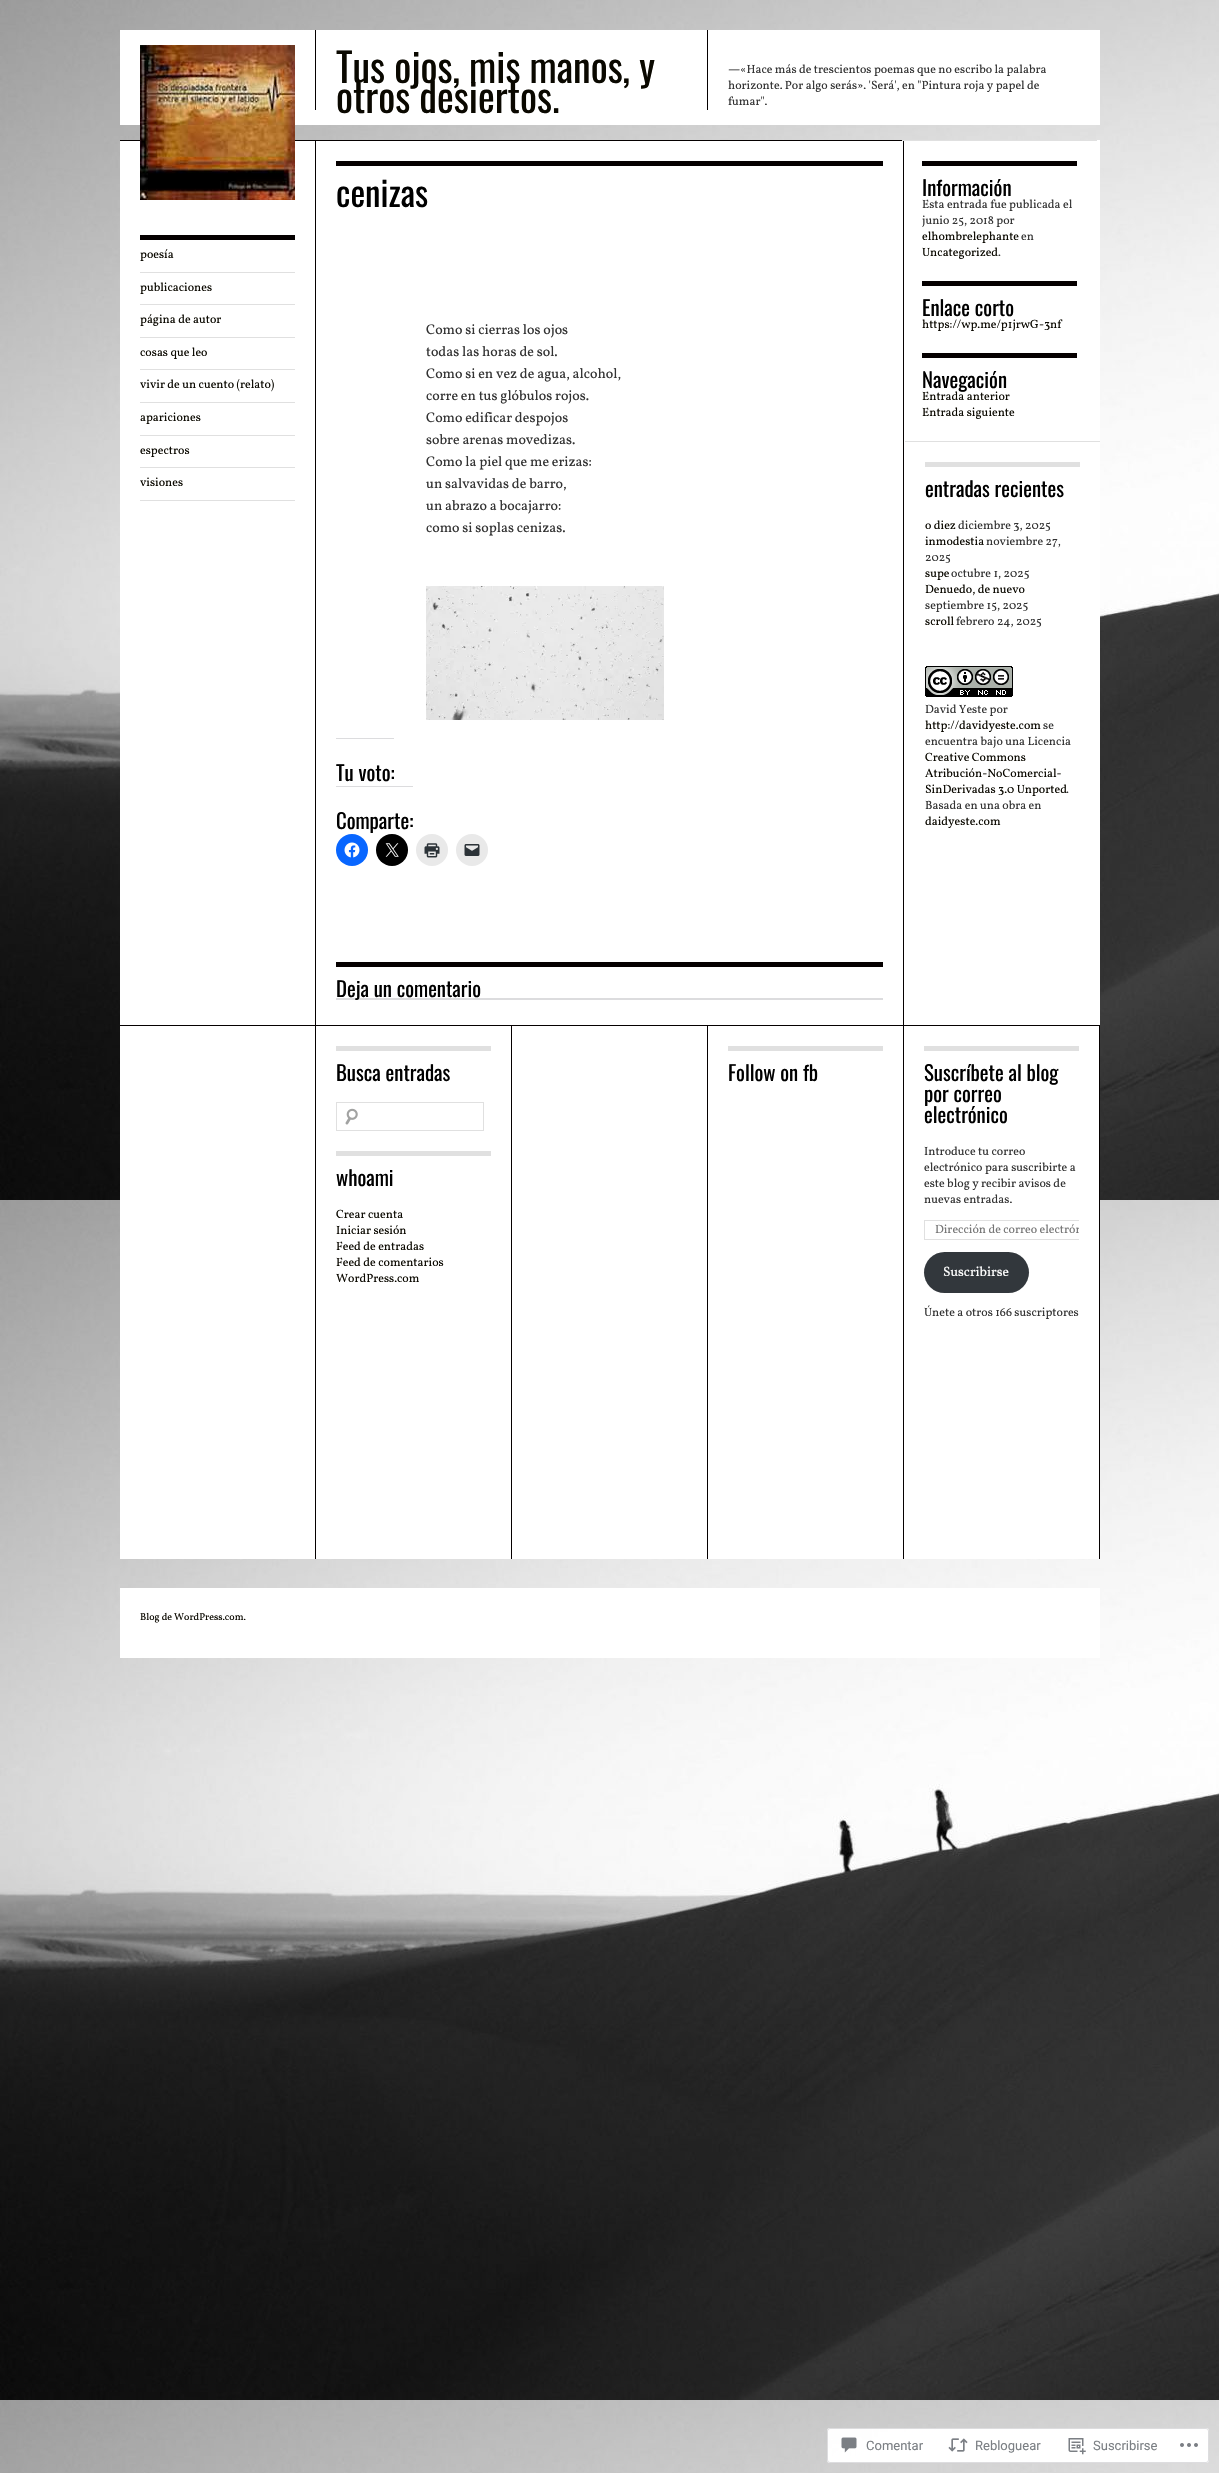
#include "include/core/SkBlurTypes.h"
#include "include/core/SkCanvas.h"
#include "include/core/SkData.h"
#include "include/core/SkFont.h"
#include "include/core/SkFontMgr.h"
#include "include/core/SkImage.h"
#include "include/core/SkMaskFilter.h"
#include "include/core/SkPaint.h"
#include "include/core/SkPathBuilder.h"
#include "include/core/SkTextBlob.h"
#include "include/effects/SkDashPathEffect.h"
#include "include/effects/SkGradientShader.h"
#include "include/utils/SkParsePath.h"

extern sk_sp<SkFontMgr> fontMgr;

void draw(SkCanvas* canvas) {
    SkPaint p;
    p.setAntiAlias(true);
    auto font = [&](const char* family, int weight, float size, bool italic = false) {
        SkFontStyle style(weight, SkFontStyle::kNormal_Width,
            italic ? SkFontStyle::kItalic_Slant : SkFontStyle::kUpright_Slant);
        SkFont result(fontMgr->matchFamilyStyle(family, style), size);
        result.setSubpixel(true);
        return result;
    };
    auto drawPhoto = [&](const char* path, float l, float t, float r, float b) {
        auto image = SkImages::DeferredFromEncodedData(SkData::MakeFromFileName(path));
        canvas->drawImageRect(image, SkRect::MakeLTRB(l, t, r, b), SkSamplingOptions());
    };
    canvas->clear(0xFFFFFFFF);
    drawPhoto("media/1.png", 0, 0, 1219, 2473);
    {
        const struct { float l, t, r, b; SkColor color; } items[] = {
            {120, 30, 1100, 125, 0xFFFFFFFF},
            {120, 140, 1100, 1559, 0xFFFFFFFF},
            {120, 140, 904, 141, 0xFF050000},
        };
        for (auto [l, t, r, b, color] : items) {
            p.setColor(color);
            canvas->drawRect(SkRect::MakeLTRB(l, t, r, b), p);
        }
    }
    drawPhoto("media/2.png", 140, 45, 295, 200);
    canvas->drawRect(SkRect::MakeLTRB(315, 30, 316, 110), p);
    auto font1 = font("Oswald", 400, 40);
    p.setColor(0xFF0A0800);
    canvas->drawString("Tus ojos, mis manos, y", 336, 83, font1, p);
    canvas->drawString("otros desiertos.", 336, 113, font1, p);
    p.setColor(0xFF050000);
    canvas->drawRect(SkRect::MakeLTRB(707, 30, 708, 110), p);
    auto font2 = font("Vollkorn", 400, 12);
    p.setColor(0xFF333333);
    {
        const struct { const char* s; float x, y; } items[] = {
            {"—«Hace más de trescientos poemas que no escribo la palabra", 728, 73},
            {"horizonte. Por algo serás». 'Será', en \"Pintura roja y papel de", 728, 89},
            {"fumar\".", 728, 105},
        };
        for (auto [s, x, y] : items) {
            canvas->drawString(s, x, y, font2, p);
        }
    }
    p.setColor(0xFF050000);
    canvas->drawRect(SkRect::MakeLTRB(140, 235, 295, 240), p);
    p.setColor(0xFFE0E0E0);
    canvas->drawRect(SkRect::MakeLTRB(140, 272, 295, 273), p);
    p.setColor(0xFF0A0800);
    canvas->drawString("poesía", 140, 258, font2, p);
    p.setColor(0xFFE0E0E0);
    canvas->drawRect(SkRect::MakeLTRB(140, 304, 295, 305), p);
    p.setColor(0xFF0A0800);
    canvas->drawString("publicaciones", 140, 291, font2, p);
    p.setColor(0xFFE0E0E0);
    canvas->drawRect(SkRect::MakeLTRB(140, 337, 295, 338), p);
    p.setColor(0xFF0A0800);
    canvas->drawString("página de autor", 140, 323, font2, p);
    p.setColor(0xFFE0E0E0);
    canvas->drawRect(SkRect::MakeLTRB(140, 369, 295, 370), p);
    p.setColor(0xFF0A0800);
    canvas->drawString("cosas que leo", 140, 356, font2, p);
    p.setColor(0xFFE0E0E0);
    canvas->drawRect(SkRect::MakeLTRB(140, 402, 295, 403), p);
    p.setColor(0xFF0A0800);
    canvas->drawString("vivir de un cuento (relato)", 140, 388, font2, p);
    p.setColor(0xFFE0E0E0);
    canvas->drawRect(SkRect::MakeLTRB(140, 435, 295, 436), p);
    p.setColor(0xFF0A0800);
    canvas->drawString("apariciones", 140, 421, font2, p);
    p.setColor(0xFFE0E0E0);
    canvas->drawRect(SkRect::MakeLTRB(140, 467, 295, 468), p);
    p.setColor(0xFF0A0800);
    canvas->drawString("espectros", 140, 454, font2, p);
    p.setColor(0xFFE0E0E0);
    canvas->drawRect(SkRect::MakeLTRB(140, 500, 295, 501), p);
    p.setColor(0xFF0A0800);
    canvas->drawString("visiones", 140, 486, font2, p);
    {
        const struct { float l, t, r, b; SkColor color; } items[] = {
            {903, 140, 904, 1025, 0xFF050000},
            {315, 140, 316, 1025, 0xFF050000},
            {336, 161, 883, 166, 0xFF050000},
        };
        for (auto [l, t, r, b, color] : items) {
            p.setColor(color);
            canvas->drawRect(SkRect::MakeLTRB(l, t, r, b), p);
        }
    }
    auto font3 = font("Oswald", 400, 35);
    p.setColor(0xFF000000);
    canvas->drawString("cenizas", 336, 207, font3, p);
    auto font4 = font("Vollkorn", 400, 14);
    p.setColor(0xFF333333);
    {
        const struct { const char* s; float x, y; } items[] = {
            {"Como si cierras los ojos", 426, 334},
            {"todas las horas de sol.", 426, 356},
            {"Como si en vez de agua, alcohol,", 426, 378},
            {"corre en tus glóbulos rojos.", 426, 400},
            {"Como edificar despojos", 426, 422},
            {"sobre arenas movedizas.", 426, 444},
            {"Como la piel que me erizas:", 426, 466},
            {"un salvavidas de barro,", 426, 488},
            {"un abrazo a bocajarro:", 426, 510},
            {"como si soplas cenizas.", 426, 532},
        };
        for (auto [s, x, y] : items) {
            canvas->drawString(s, x, y, font4, p);
        }
    }
    drawPhoto("media/3.png", 426, 586, 664, 720);
    p.setColor(0xFFDCDCDE);
    canvas->drawRect(SkRect::MakeLTRB(336, 738, 394, 739), p);
    auto font5 = font("Oswald", 400, 20.75f);
    p.setColor(0xFF000000);
    canvas->drawString("Tu voto:", 336, 781, font5, p);
    p.setColor(0xFFDCDCDE);
    canvas->drawRect(SkRect::MakeLTRB(336, 786, 413, 787), p);
    p.setColor(0xFF000000);
    canvas->drawString("Comparte:", 336, 829, font5, p);
    p.setColor(0xFF0866FF);
    canvas->drawCircle(352, 850, 16, p);
    drawPhoto("media/4.png", 344, 842, 360, 858);
    p.setColor(0xFF000000);
    canvas->drawCircle(392, 850, 16, p);
    drawPhoto("media/5.png", 385, 843, 399, 857);
    p.setColor(0xFFE9E9E9);
    canvas->drawCircle(432, 850, 16, p);
    drawPhoto("media/6.png", 424, 843, 440, 858);
    canvas->drawCircle(472, 850, 16, p);
    drawPhoto("media/7.png", 464, 844, 480, 856);
    p.setColor(0xFF050000);
    canvas->drawRect(SkRect::MakeLTRB(336, 962, 883, 967), p);
    p.setColor(0xFFDCDCDE);
    canvas->drawRect(SkRect::MakeLTRB(336, 998, 883, 1000), p);
    p.setColor(0xFF000000);
    canvas->drawString("Deja un comentario", 336, 997, font5, p);
    p.setColor(0xFFE0E0E0);
    canvas->drawRect(SkRect::MakeLTRB(902, 140, 1097, 141), p);
    p.setColor(0xFF050000);
    canvas->drawRect(SkRect::MakeLTRB(922, 161, 1077, 166), p);
    p.setColor(0xFF000000);
    canvas->drawString("Información", 922, 196, font5, p);
    p.setColor(0xFF333333);
    canvas->drawString("Esta entrada fue publicada el", 922, 208, font2, p);
    canvas->drawString("junio 25, 2018 por", 922, 224, font2, p);
    p.setColor(0xFF0A0800);
    canvas->drawString("elhombrelephante", 922, 240, font2, p);
    p.setColor(0xFF333333);
    canvas->drawString("en", 1021, 240, font2, p);
    p.setColor(0xFF0A0800);
    canvas->drawString("Uncategorized", 922, 256, font2, p);
    p.setColor(0xFF333333);
    canvas->drawString(".", 998, 256, font2, p);
    p.setColor(0xFF050000);
    canvas->drawRect(SkRect::MakeLTRB(922, 281, 1077, 286), p);
    p.setColor(0xFF000000);
    canvas->drawString("Enlace corto", 922, 316, font5, p);
    p.setColor(0xFF0A0800);
    canvas->drawString("https://wp.me/p1jrwG-3nf", 922, 328, font2, p);
    p.setColor(0xFF050000);
    canvas->drawRect(SkRect::MakeLTRB(922, 353, 1077, 358), p);
    p.setColor(0xFF000000);
    canvas->drawString("Navegación", 922, 388, font5, p);
    p.setColor(0xFF0A0800);
    canvas->drawString("Entrada anterior", 922, 400, font2, p);
    canvas->drawString("Entrada siguiente", 922, 416, font2, p);
    p.setColor(0xFFE0E0E0);
    canvas->drawRect(SkRect::MakeLTRB(905, 441, 1100, 442), p);
    canvas->drawRect(SkRect::MakeLTRB(925, 462, 1080, 467), p);
    p.setColor(0xFF000000);
    canvas->drawString("entradas recientes", 925, 497, font5, p);
    p.setColor(0xFF0A0800);
    canvas->drawString("o diez", 925, 529, font2, p);
    p.setColor(0xFF333333);
    canvas->drawString("diciembre 3, 2025", 958, 529, font2, p);
    p.setColor(0xFF0A0800);
    canvas->drawString("inmodestia", 925, 545, font2, p);
    p.setColor(0xFF333333);
    canvas->drawString("noviembre 27,", 986, 545, font2, p);
    canvas->drawString("2025", 925, 561, font2, p);
    p.setColor(0xFF0A0800);
    canvas->drawString("supe", 925, 577, font2, p);
    p.setColor(0xFF333333);
    canvas->drawString("octubre 1, 2025", 951, 577, font2, p);
    p.setColor(0xFF0A0800);
    canvas->drawString("Denuedo, de nuevo", 925, 593, font2, p);
    p.setColor(0xFF333333);
    canvas->drawString("septiembre 15, 2025", 925, 609, font2, p);
    p.setColor(0xFF0A0800);
    canvas->drawString("scroll", 925, 625, font2, p);
    p.setColor(0xFF333333);
    canvas->drawString("febrero 24, 2025", 956, 625, font2, p);
    drawPhoto("media/8.png", 925, 666, 1013, 697);
    canvas->drawString("David Yeste por", 925, 713, font2, p);
    p.setColor(0xFF0A0800);
    canvas->drawString("http://davidyeste.com", 925, 729, font2, p);
    p.setColor(0xFF333333);
    canvas->drawString("se", 1043, 729, font2, p);
    canvas->drawString("encuentra bajo una Licencia", 925, 745, font2, p);
    p.setColor(0xFF0A0800);
    {
        const struct { const char* s; float x, y; } items[] = {
            {"Creative Commons", 925, 761},
            {"Atribución-NoComercial-", 925, 777},
            {"SinDerivadas 3.0 Unported", 925, 793},
        };
        for (auto [s, x, y] : items) {
            canvas->drawString(s, x, y, font2, p);
        }
    }
    p.setColor(0xFF333333);
    canvas->drawString(".", 1066, 793, font2, p);
    canvas->drawString("Basada en una obra en", 925, 809, font2, p);
    p.setColor(0xFF0A0800);
    canvas->drawString("daidyeste.com", 925, 825, font2, p);
    {
        const struct { float l, t, r, b; SkColor color; } items[] = {
            {120, 1025, 1100, 1026, 0xFF050000},
            {315, 1026, 316, 1559, 0xFF050000},
            {511, 1026, 512, 1559, 0xFF050000},
            {336, 1046, 491, 1051, 0xFFE0E0E0},
        };
        for (auto [l, t, r, b, color] : items) {
            p.setColor(color);
            canvas->drawRect(SkRect::MakeLTRB(l, t, r, b), p);
        }
    }
    p.setColor(0xFF000000);
    canvas->drawString("Busca entradas", 336, 1081, font5, p);
    drawPhoto("media/9.png", 345, 1108, 358, 1125);
    p.setStyle(SkPaint::kStroke_Style);
    p.setStrokeWidth(1);
    p.setColor(0xFFE0E0E0);
    canvas->drawRect(SkRect::MakeLTRB(336.5f, 1102.5f, 483.5f, 1130.5f), p);
    p.setStyle(SkPaint::kFill_Style);
    canvas->drawRect(SkRect::MakeLTRB(336, 1151, 491, 1156), p);
    p.setColor(0xFF000000);
    canvas->drawString("whoami", 336, 1186, font5, p);
    p.setColor(0xFF0A0800);
    {
        const struct { const char* s; float x, y; } items[] = {
            {"Crear cuenta", 336, 1218},
            {"Iniciar sesión", 336, 1234},
            {"Feed de entradas", 336, 1250},
            {"Feed de comentarios", 336, 1266},
            {"WordPress.com", 336, 1282},
        };
        for (auto [s, x, y] : items) {
            canvas->drawString(s, x, y, font2, p);
        }
    }
    {
        const struct { float l, t, r, b; SkColor color; } items[] = {
            {707, 1026, 708, 1559, 0xFF050000},
            {903, 1026, 904, 1559, 0xFF050000},
            {728, 1046, 883, 1051, 0xFFE0E0E0},
        };
        for (auto [l, t, r, b, color] : items) {
            p.setColor(color);
            canvas->drawRect(SkRect::MakeLTRB(l, t, r, b), p);
        }
    }
    p.setColor(0xFF000000);
    canvas->drawString("Follow on fb", 728, 1081, font5, p);
    p.setColor(0xFF050000);
    canvas->drawRect(SkRect::MakeLTRB(1099, 1026, 1100, 1559), p);
    p.setColor(0xFFE0E0E0);
    canvas->drawRect(SkRect::MakeLTRB(924, 1046, 1079, 1051), p);
    p.setColor(0xFF000000);
    {
        const struct { const char* s; float x, y; } items[] = {
            {"Suscríbete al blog", 924, 1081},
            {"por correo", 924, 1102},
            {"electrónico", 924, 1123},
        };
        for (auto [s, x, y] : items) {
            canvas->drawString(s, x, y, font5, p);
        }
    }
    p.setColor(0xFF333333);
    {
        const struct { const char* s; float x, y; } items[] = {
            {"Introduce tu correo", 924, 1155},
            {"electrónico para suscribirte a", 924, 1171},
            {"este blog y recibir avisos de", 924, 1187},
            {"nuevas entradas.", 924, 1203},
        };
        for (auto [s, x, y] : items) {
            canvas->drawString(s, x, y, font2, p);
        }
    }
    canvas->save();
    canvas->clipRect(SkRect::MakeLTRB(924, 1046, 1079, 1321));
    p.setStyle(SkPaint::kStroke_Style);
    p.setColor(0xFFE0E0E0);
    canvas->drawRect(SkRect::MakeLTRB(924.5f, 1220.5f, 1092.5f, 1239.5f), p);
    canvas->restore();
    canvas->save();
    canvas->clipRect(SkRect::MakeLTRB(935, 1222, 1079, 1238));
    p.setStyle(SkPaint::kFill_Style);
    p.setColor(0xFF757575);
    canvas->drawString("Dirección de correo electrón", 935, 1233, font2, p);
    canvas->restore();
    p.setColor(0xFF32373C);
    canvas->drawRoundRect(SkRect::MakeLTRB(924, 1252, 1029, 1293), 20.5f, 20.5f, p);
    auto font6 = font("Vollkorn", 400, 13.5f);
    p.setColor(0xFFFFFFFF);
    canvas->drawString("Suscribirse", 943, 1276, font6, p);
    p.setColor(0xFF333333);
    canvas->drawString("Únete a otros 166 suscriptores", 924, 1316, font2, p);
    p.setColor(0xFFFFFFFF);
    canvas->drawRect(SkRect::MakeLTRB(120, 1588, 1100, 1658), p);
    auto font7 = font("Vollkorn", 400, 10);
    p.setColor(0xFF0A0800);
    canvas->drawString("Blog de WordPress.com.", 140, 1620, font7, p);
    p.setColor(0xFAFFFFFF);
    canvas->drawRoundRect(SkRect::MakeLTRB(827, 2428, 1209, 2463), 3, 3, p);
    p.setStyle(SkPaint::kStroke_Style);
    p.setColor(0xFADCDCDE);
    canvas->drawRoundRect(SkRect::MakeLTRB(827.5f, 2428.5f, 1208.5f, 2462.5f), 2.5f, 2.5f, p);
    drawPhoto("media/10.png", 841, 2437, 857, 2453);
    auto font8 = font("Roboto", 400, 13);
    p.setStyle(SkPaint::kFill_Style);
    p.setColor(0xFF7B7F84);
    canvas->drawString("Comentar", 866, 2450, font8, p);
    drawPhoto("media/11.png", 948, 2438, 968, 2452);
    canvas->drawString("Rebloguear", 975, 2450, font8, p);
    drawPhoto("media/12.png", 1068, 2438, 1086, 2455);
    canvas->drawString("Suscribirse", 1093, 2450, font8, p);
    drawPhoto("media/13.png", 1180, 2443, 1198, 2447);
}
